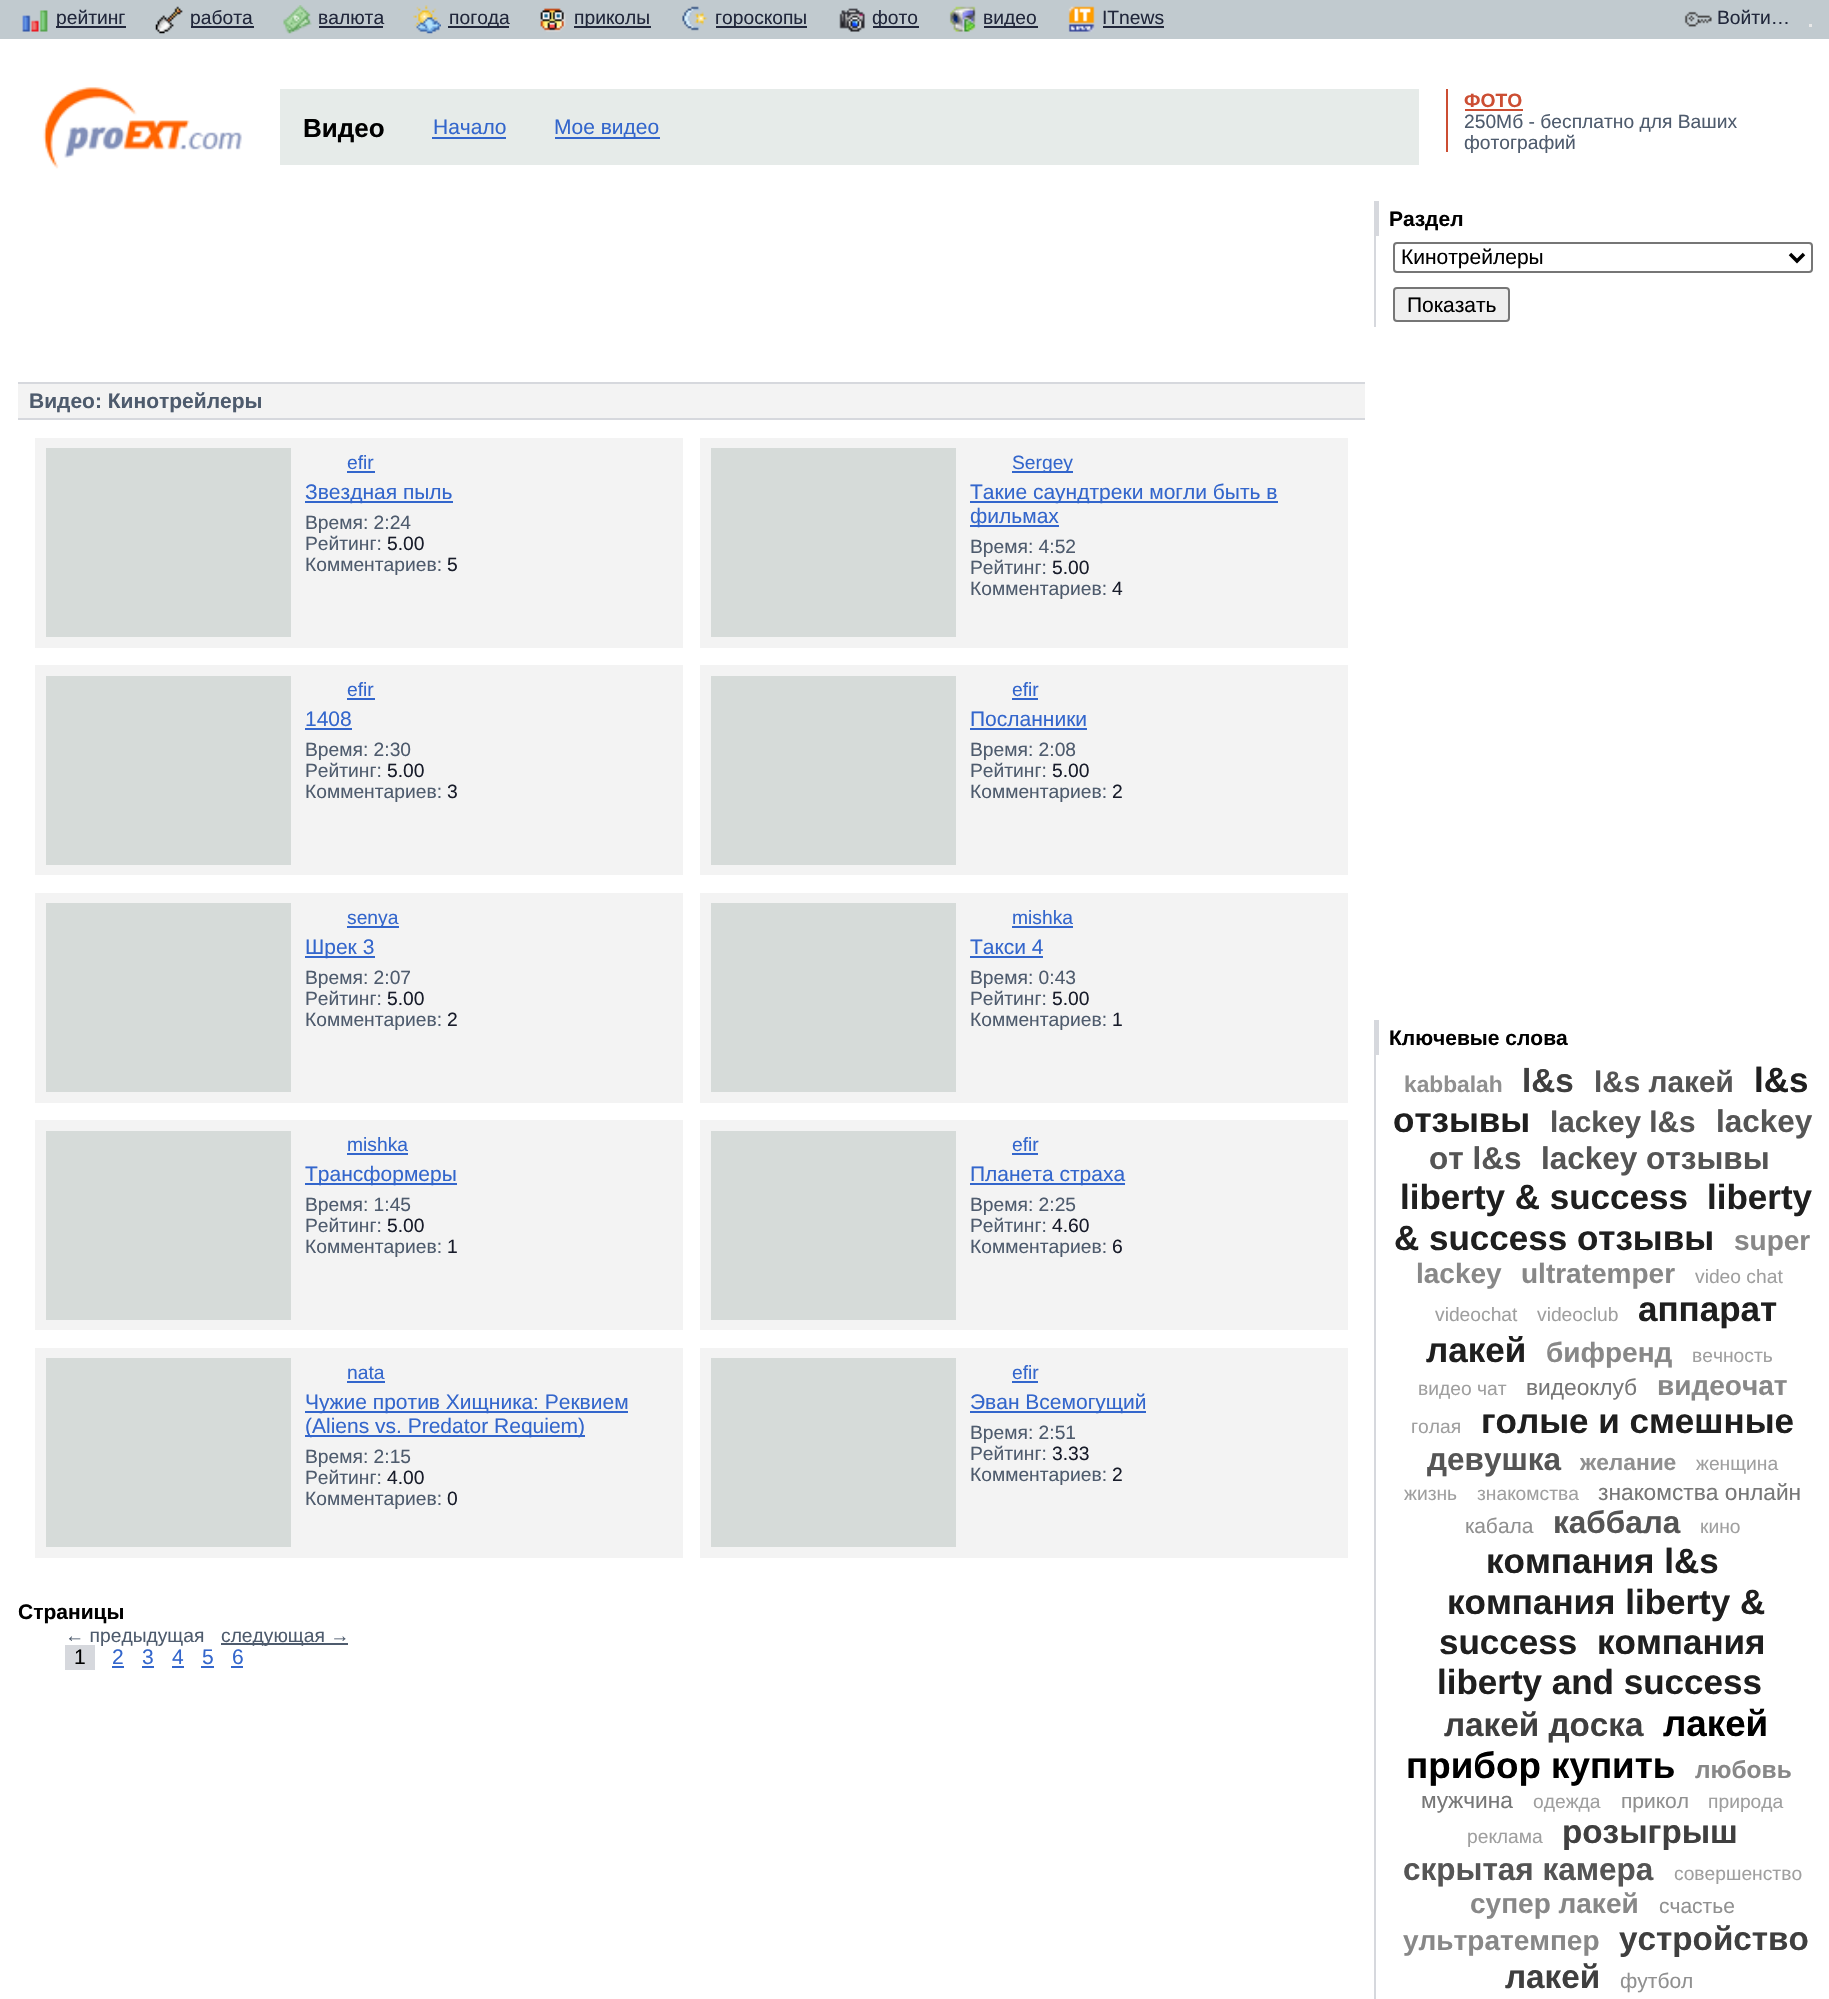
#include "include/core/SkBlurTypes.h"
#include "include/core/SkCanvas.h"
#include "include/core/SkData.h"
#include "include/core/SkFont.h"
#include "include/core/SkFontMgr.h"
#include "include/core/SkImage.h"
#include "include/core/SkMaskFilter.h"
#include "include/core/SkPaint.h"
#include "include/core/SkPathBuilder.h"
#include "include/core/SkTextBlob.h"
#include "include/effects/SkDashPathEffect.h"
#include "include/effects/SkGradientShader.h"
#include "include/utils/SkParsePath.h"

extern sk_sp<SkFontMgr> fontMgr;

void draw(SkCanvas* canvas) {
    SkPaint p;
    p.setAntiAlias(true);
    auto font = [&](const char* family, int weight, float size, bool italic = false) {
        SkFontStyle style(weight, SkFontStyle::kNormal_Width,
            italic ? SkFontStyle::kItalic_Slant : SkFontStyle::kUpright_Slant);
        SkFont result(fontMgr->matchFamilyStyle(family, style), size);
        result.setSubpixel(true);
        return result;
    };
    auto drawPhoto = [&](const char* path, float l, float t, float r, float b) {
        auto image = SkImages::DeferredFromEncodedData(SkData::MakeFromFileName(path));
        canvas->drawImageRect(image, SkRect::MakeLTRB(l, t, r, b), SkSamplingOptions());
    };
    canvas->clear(0xFFFFFFFF);
    p.setColor(0xFFC1CACF);
    canvas->drawRect(SkRect::MakeLTRB(0, 0, 1829, 39), p);
    drawPhoto("media/1.png", 22, 10, 48, 32);
    p.setColor(0xFF21273B);
    canvas->drawRect(SkRect::MakeLTRB(56, 26, 126, 28), p);
    auto font1 = font("Liberation Sans", 400, 19.25f);
    canvas->drawString("рейтинг", 56, 24, font1, p);
    drawPhoto("media/2.png", 155, 6, 183, 34);
    canvas->drawRect(SkRect::MakeLTRB(191, 26, 254, 28), p);
    canvas->drawString("работа", 190, 24, font1, p);
    drawPhoto("media/3.png", 283, 5, 312, 34);
    canvas->drawString("валюта", 318, 24, font1, p);
    canvas->drawRect(SkRect::MakeLTRB(319, 26, 383, 28), p);
    drawPhoto("media/4.png", 413, 5, 441, 34);
    canvas->drawRect(SkRect::MakeLTRB(448, 26, 509, 28), p);
    canvas->drawString("погода", 449, 24, font1, p);
    drawPhoto("media/5.png", 540, 8, 566, 32);
    canvas->drawRect(SkRect::MakeLTRB(574, 26, 651, 28), p);
    canvas->drawString("приколы", 574, 24, font1, p);
    drawPhoto("media/6.png", 682, 6, 708, 31);
    canvas->drawRect(SkRect::MakeLTRB(716, 26, 807, 28), p);
    canvas->drawString("гороскопы", 715, 24, font1, p);
    drawPhoto("media/7.png", 839, 8, 865, 32);
    canvas->drawRect(SkRect::MakeLTRB(873, 26, 919, 28), p);
    canvas->drawString("фото", 872, 24, font1, p);
    drawPhoto("media/8.png", 949, 6, 976, 32);
    canvas->drawRect(SkRect::MakeLTRB(984, 26, 1038, 28), p);
    canvas->drawString("видео", 983, 24, font1, p);
    drawPhoto("media/9.png", 1068, 6, 1095, 32);
    canvas->drawString("ITnews", 1102, 24, font1, p);
    canvas->drawRect(SkRect::MakeLTRB(1103, 26, 1164, 28), p);
    drawPhoto("media/10.png", 1684, 11, 1712, 27);
    canvas->drawString("Войти…", 1717, 24, font1, p);
    p.setColor(0xFFE8E8E8);
    canvas->drawRect(SkRect::MakeLTRB(1809, 24, 1812, 27), p);
    drawPhoto("media/11.png", 43, 87, 242, 169);
    p.setColor(0xFFE6EBE9);
    canvas->drawRect(SkRect::MakeLTRB(280, 89, 1419, 165), p);
    auto font2 = font("Liberation Sans", 700, 26);
    p.setColor(0xFF000000);
    canvas->drawString("Видео", 303, 137, font2, p);
    auto font3 = font("Liberation Sans", 400, 21);
    p.setColor(0xFF3366CC);
    canvas->drawString("Начало", 433, 134, font3, p);
    canvas->drawRect(SkRect::MakeLTRB(432, 137, 506, 139), p);
    canvas->drawRect(SkRect::MakeLTRB(555, 137, 660, 139), p);
    canvas->drawString("Мое видео", 554, 134, font3, p);
    p.setColor(0xFFCC4E33);
    canvas->drawRect(SkRect::MakeLTRB(1446, 89, 1448, 152), p);
    auto font4 = font("Liberation Sans", 700, 19.25f);
    canvas->drawString("ФОТО", 1464, 107, font4, p);
    canvas->drawRect(SkRect::MakeLTRB(1465, 109, 1523, 111), p);
    p.setColor(0xFF4E5B6D);
    canvas->drawString("250Мб - бесплатно для Ваших", 1464, 128, font1, p);
    canvas->drawString("фотографий", 1464, 149, font1, p);
    {
        const struct { float l, t, r, b; SkColor color; } items[] = {
            {18, 384, 1365, 418, 0xFFF3F3F3},
            {18, 382, 1365, 384, 0xFFD6D8DD},
            {18, 418, 1365, 420, 0xFFD6D8DD},
        };
        for (auto [l, t, r, b, color] : items) {
            p.setColor(color);
            canvas->drawRect(SkRect::MakeLTRB(l, t, r, b), p);
        }
    }
    auto font5 = font("Liberation Sans", 700, 21);
    p.setColor(0xFF4E5B6D);
    canvas->drawString("Видео: Кинотрейлеры", 29, 408, font5, p);
    p.setColor(0xFFF3F3F3);
    canvas->drawRect(SkRect::MakeLTRB(35, 438, 683, 648), p);
    p.setColor(0xFFD6DBD9);
    canvas->drawRect(SkRect::MakeLTRB(46, 448, 291, 637), p);
    p.setColor(0xFF3366CC);
    canvas->drawString("efir", 347, 469, font1, p);
    canvas->drawRect(SkRect::MakeLTRB(347, 471, 375, 473), p);
    canvas->drawRect(SkRect::MakeLTRB(305, 501, 453, 503), p);
    canvas->drawString("Звездная пыль", 305, 499, font3, p);
    p.setColor(0xFF4E5B6D);
    canvas->drawString("Время: 2:24", 305, 529, font1, p);
    canvas->drawString("Рейтинг:", 305, 550, font1, p);
    p.setColor(0xFF181C2A);
    canvas->drawString("5.00", 387, 550, font1, p);
    p.setColor(0xFF4E5B6D);
    canvas->drawString("Комментариев:", 305, 571, font1, p);
    p.setColor(0xFF181C2A);
    canvas->drawString("5", 447, 571, font1, p);
    {
        const struct { float l, t, r, b; SkColor color; } items[] = {
            {700, 438, 1348, 648, 0xFFF3F3F3},
            {711, 448, 956, 637, 0xFFD6DBD9},
            {1012, 471, 1073, 473, 0xFF3366CC},
        };
        for (auto [l, t, r, b, color] : items) {
            p.setColor(color);
            canvas->drawRect(SkRect::MakeLTRB(l, t, r, b), p);
        }
    }
    canvas->drawString("Sergey", 1012, 469, font1, p);
    canvas->drawRect(SkRect::MakeLTRB(970, 501, 1278, 503), p);
    canvas->drawString("Такие саундтреки могли быть в", 970, 499, font3, p);
    canvas->drawRect(SkRect::MakeLTRB(970, 525, 1059, 527), p);
    canvas->drawString("фильмах", 970, 523, font3, p);
    p.setColor(0xFF4E5B6D);
    canvas->drawString("Время: 4:52", 970, 553, font1, p);
    canvas->drawString("Рейтинг:", 970, 574, font1, p);
    p.setColor(0xFF181C2A);
    canvas->drawString("5.00", 1052, 574, font1, p);
    p.setColor(0xFF4E5B6D);
    canvas->drawString("Комментариев:", 970, 595, font1, p);
    p.setColor(0xFF181C2A);
    canvas->drawString("4", 1112, 595, font1, p);
    p.setColor(0xFFF3F3F3);
    canvas->drawRect(SkRect::MakeLTRB(35, 665, 683, 875), p);
    p.setColor(0xFFD6DBD9);
    canvas->drawRect(SkRect::MakeLTRB(46, 676, 291, 865), p);
    p.setColor(0xFF3366CC);
    canvas->drawString("efir", 347, 696, font1, p);
    canvas->drawRect(SkRect::MakeLTRB(347, 698, 375, 700), p);
    canvas->drawString("1408", 305, 726, font3, p);
    canvas->drawRect(SkRect::MakeLTRB(305, 728, 352, 730), p);
    p.setColor(0xFF4E5B6D);
    canvas->drawString("Время: 2:30", 305, 756, font1, p);
    canvas->drawString("Рейтинг:", 305, 777, font1, p);
    p.setColor(0xFF181C2A);
    canvas->drawString("5.00", 387, 777, font1, p);
    p.setColor(0xFF4E5B6D);
    canvas->drawString("Комментариев:", 305, 798, font1, p);
    p.setColor(0xFF181C2A);
    canvas->drawString("3", 447, 798, font1, p);
    p.setColor(0xFFF3F3F3);
    canvas->drawRect(SkRect::MakeLTRB(700, 665, 1348, 875), p);
    p.setColor(0xFFD6DBD9);
    canvas->drawRect(SkRect::MakeLTRB(711, 676, 956, 865), p);
    p.setColor(0xFF3366CC);
    canvas->drawString("efir", 1012, 696, font1, p);
    canvas->drawRect(SkRect::MakeLTRB(1012, 698, 1038, 700), p);
    canvas->drawString("Посланники", 970, 726, font3, p);
    canvas->drawRect(SkRect::MakeLTRB(970, 728, 1087, 730), p);
    p.setColor(0xFF4E5B6D);
    canvas->drawString("Время: 2:08", 970, 756, font1, p);
    canvas->drawString("Рейтинг:", 970, 777, font1, p);
    p.setColor(0xFF181C2A);
    canvas->drawString("5.00", 1052, 777, font1, p);
    p.setColor(0xFF4E5B6D);
    canvas->drawString("Комментариев:", 970, 798, font1, p);
    p.setColor(0xFF181C2A);
    canvas->drawString("2", 1112, 798, font1, p);
    {
        const struct { float l, t, r, b; SkColor color; } items[] = {
            {35, 893, 683, 1103, 0xFFF3F3F3},
            {46, 903, 291, 1092, 0xFFD6DBD9},
            {347, 926, 399, 928, 0xFF3366CC},
        };
        for (auto [l, t, r, b, color] : items) {
            p.setColor(color);
            canvas->drawRect(SkRect::MakeLTRB(l, t, r, b), p);
        }
    }
    canvas->drawString("senya", 347, 924, font1, p);
    canvas->drawRect(SkRect::MakeLTRB(305, 956, 375, 958), p);
    canvas->drawString("Шрек 3", 305, 954, font3, p);
    p.setColor(0xFF4E5B6D);
    canvas->drawString("Время: 2:07", 305, 984, font1, p);
    canvas->drawString("Рейтинг:", 305, 1005, font1, p);
    p.setColor(0xFF181C2A);
    canvas->drawString("5.00", 387, 1005, font1, p);
    p.setColor(0xFF4E5B6D);
    canvas->drawString("Комментариев:", 305, 1026, font1, p);
    p.setColor(0xFF181C2A);
    canvas->drawString("2", 447, 1026, font1, p);
    p.setColor(0xFFF3F3F3);
    canvas->drawRect(SkRect::MakeLTRB(700, 893, 1348, 1103), p);
    p.setColor(0xFFD6DBD9);
    canvas->drawRect(SkRect::MakeLTRB(711, 903, 956, 1092), p);
    p.setColor(0xFF3366CC);
    canvas->drawString("mishka", 1012, 924, font1, p);
    canvas->drawRect(SkRect::MakeLTRB(1012, 926, 1073, 928), p);
    canvas->drawString("Такси 4", 970, 954, font3, p);
    canvas->drawRect(SkRect::MakeLTRB(970, 956, 1043, 958), p);
    p.setColor(0xFF4E5B6D);
    canvas->drawString("Время: 0:43", 970, 984, font1, p);
    canvas->drawString("Рейтинг:", 970, 1005, font1, p);
    p.setColor(0xFF181C2A);
    canvas->drawString("5.00", 1052, 1005, font1, p);
    p.setColor(0xFF4E5B6D);
    canvas->drawString("Комментариев:", 970, 1026, font1, p);
    p.setColor(0xFF181C2A);
    canvas->drawString("1", 1112, 1026, font1, p);
    p.setColor(0xFFF3F3F3);
    canvas->drawRect(SkRect::MakeLTRB(35, 1120, 683, 1330), p);
    p.setColor(0xFFD6DBD9);
    canvas->drawRect(SkRect::MakeLTRB(46, 1131, 291, 1320), p);
    p.setColor(0xFF3366CC);
    canvas->drawString("mishka", 347, 1151, font1, p);
    canvas->drawRect(SkRect::MakeLTRB(347, 1153, 408, 1155), p);
    canvas->drawRect(SkRect::MakeLTRB(305, 1183, 457, 1185), p);
    canvas->drawString("Трансформеры", 305, 1181, font3, p);
    p.setColor(0xFF4E5B6D);
    canvas->drawString("Время: 1:45", 305, 1211, font1, p);
    canvas->drawString("Рейтинг:", 305, 1232, font1, p);
    p.setColor(0xFF181C2A);
    canvas->drawString("5.00", 387, 1232, font1, p);
    p.setColor(0xFF4E5B6D);
    canvas->drawString("Комментариев:", 305, 1253, font1, p);
    p.setColor(0xFF181C2A);
    canvas->drawString("1", 447, 1253, font1, p);
    p.setColor(0xFFF3F3F3);
    canvas->drawRect(SkRect::MakeLTRB(700, 1120, 1348, 1330), p);
    p.setColor(0xFFD6DBD9);
    canvas->drawRect(SkRect::MakeLTRB(711, 1131, 956, 1320), p);
    p.setColor(0xFF3366CC);
    canvas->drawString("efir", 1012, 1151, font1, p);
    canvas->drawRect(SkRect::MakeLTRB(1012, 1153, 1038, 1155), p);
    canvas->drawRect(SkRect::MakeLTRB(970, 1183, 1125, 1185), p);
    canvas->drawString("Планета страха", 970, 1181, font3, p);
    p.setColor(0xFF4E5B6D);
    canvas->drawString("Время: 2:25", 970, 1211, font1, p);
    canvas->drawString("Рейтинг:", 970, 1232, font1, p);
    p.setColor(0xFF181C2A);
    canvas->drawString("4.60", 1052, 1232, font1, p);
    p.setColor(0xFF4E5B6D);
    canvas->drawString("Комментариев:", 970, 1253, font1, p);
    p.setColor(0xFF181C2A);
    canvas->drawString("6", 1112, 1253, font1, p);
    p.setColor(0xFFF3F3F3);
    canvas->drawRect(SkRect::MakeLTRB(35, 1348, 683, 1558), p);
    p.setColor(0xFFD6DBD9);
    canvas->drawRect(SkRect::MakeLTRB(46, 1358, 291, 1547), p);
    p.setColor(0xFF3366CC);
    canvas->drawString("nata", 347, 1379, font1, p);
    canvas->drawRect(SkRect::MakeLTRB(347, 1381, 385, 1383), p);
    canvas->drawRect(SkRect::MakeLTRB(305, 1411, 628, 1413), p);
    canvas->drawString("Чужие против Хищника: Реквием", 305, 1409, font3, p);
    canvas->drawRect(SkRect::MakeLTRB(305, 1435, 585, 1437), p);
    canvas->drawString("(Aliens vs. Predator Requiem)", 305, 1433, font3, p);
    p.setColor(0xFF4E5B6D);
    canvas->drawString("Время: 2:15", 305, 1463, font1, p);
    canvas->drawString("Рейтинг:", 305, 1484, font1, p);
    p.setColor(0xFF181C2A);
    canvas->drawString("4.00", 387, 1484, font1, p);
    p.setColor(0xFF4E5B6D);
    canvas->drawString("Комментариев:", 305, 1505, font1, p);
    p.setColor(0xFF181C2A);
    canvas->drawString("0", 447, 1505, font1, p);
    p.setColor(0xFFF3F3F3);
    canvas->drawRect(SkRect::MakeLTRB(700, 1348, 1348, 1558), p);
    p.setColor(0xFFD6DBD9);
    canvas->drawRect(SkRect::MakeLTRB(711, 1358, 956, 1547), p);
    p.setColor(0xFF3366CC);
    canvas->drawString("efir", 1012, 1379, font1, p);
    canvas->drawRect(SkRect::MakeLTRB(1012, 1381, 1038, 1383), p);
    canvas->drawRect(SkRect::MakeLTRB(970, 1411, 1146, 1413), p);
    canvas->drawString("Эван Всемогущий", 970, 1409, font3, p);
    p.setColor(0xFF4E5B6D);
    canvas->drawString("Время: 2:51", 970, 1439, font1, p);
    canvas->drawString("Рейтинг:", 970, 1460, font1, p);
    p.setColor(0xFF181C2A);
    canvas->drawString("3.33", 1052, 1460, font1, p);
    p.setColor(0xFF4E5B6D);
    canvas->drawString("Комментариев:", 970, 1481, font1, p);
    p.setColor(0xFF181C2A);
    canvas->drawString("2", 1112, 1481, font1, p);
    p.setColor(0xFF000000);
    canvas->drawString("Страницы", 18, 1619, font5, p);
    p.setColor(0xFF4E5B6D);
    canvas->drawString("← предыдущая", 65, 1642, font1, p);
    canvas->drawRect(SkRect::MakeLTRB(221, 1643, 348, 1645), p);
    canvas->drawString("следующая →", 221, 1642, font1, p);
    p.setColor(0xFFD6D8DD);
    canvas->drawRect(SkRect::MakeLTRB(65, 1645, 95, 1670), p);
    p.setColor(0xFF000000);
    canvas->drawString("1", 74, 1664, font3, p);
    p.setColor(0xFF3366CC);
    canvas->drawString("2", 112, 1664, font3, p);
    canvas->drawRect(SkRect::MakeLTRB(112, 1666, 124, 1668), p);
    canvas->drawString("3", 142, 1664, font3, p);
    canvas->drawRect(SkRect::MakeLTRB(142, 1666, 154, 1668), p);
    canvas->drawString("4", 172, 1664, font3, p);
    canvas->drawRect(SkRect::MakeLTRB(172, 1666, 184, 1668), p);
    canvas->drawString("5", 202, 1664, font3, p);
    canvas->drawRect(SkRect::MakeLTRB(201, 1666, 214, 1668), p);
    canvas->drawString("6", 232, 1664, font3, p);
    canvas->drawRect(SkRect::MakeLTRB(231, 1666, 243, 1668), p);
    p.setColor(0xFFD6D8DD);
    canvas->drawRect(SkRect::MakeLTRB(1374, 201, 1379, 236), p);
    p.setColor(0xFF000000);
    canvas->drawString("Раздел", 1389, 226, font5, p);
    p.setColor(0xFFD6D8DD);
    canvas->drawRect(SkRect::MakeLTRB(1374, 236, 1376, 327), p);
    p.setStyle(SkPaint::kStroke_Style);
    p.setStrokeWidth(2);
    p.setColor(0xFF767676);
    canvas->drawRoundRect(SkRect::MakeLTRB(1394, 243, 1812, 272), 3, 3, p);
    p.setStrokeWidth(3.5f);
    p.setColor(0xFF000000);
    canvas->drawPath(SkPathBuilder().moveTo(1790, 254).lineTo(1797, 261).lineTo(1804, 254).detach(), p);
    p.setStyle(SkPaint::kFill_Style);
    canvas->drawString("Кинотрейлеры", 1401, 264, font3, p);
    p.setColor(0xFFEFEFEF);
    canvas->drawRoundRect(SkRect::MakeLTRB(1394, 288, 1509, 321), 3, 3, p);
    p.setStyle(SkPaint::kStroke_Style);
    p.setStrokeWidth(2);
    p.setColor(0xFF767676);
    canvas->drawRoundRect(SkRect::MakeLTRB(1394, 288, 1509, 321), 3, 3, p);
    p.setStyle(SkPaint::kFill_Style);
    p.setColor(0xFF000000);
    canvas->drawString("Показать", 1407, 312, font3, p);
    p.setColor(0xFFD6D8DD);
    canvas->drawRect(SkRect::MakeLTRB(1374, 1020, 1379, 1055), p);
    p.setColor(0xFF000000);
    canvas->drawString("Ключевые слова", 1389, 1045, font5, p);
    p.setColor(0xFFD6D8DD);
    canvas->drawRect(SkRect::MakeLTRB(1374, 1055, 1376, 1999), p);
    auto font6 = font("Liberation Sans", 700, 22.75f);
    p.setColor(0xFF909090);
    canvas->drawString("kabbalah", 1404, 1092, font6, p);
    auto font7 = font("Liberation Sans", 700, 33.25f);
    p.setColor(0xFF3F3F3F);
    canvas->drawString("l&s", 1522, 1092, font7, p);
    auto font8 = font("Liberation Sans", 700, 29.75f);
    p.setColor(0xFF555555);
    canvas->drawString("l&s лакей", 1594, 1092, font8, p);
    auto font9 = font("Liberation Sans", 700, 35);
    p.setColor(0xFF1F1F1F);
    canvas->drawString("l&s", 1754, 1092, font9, p);
    canvas->drawString("отзывы", 1393, 1132, font9, p);
    p.setColor(0xFF555555);
    canvas->drawString("lackey l&s", 1550, 1132, font8, p);
    auto font10 = font("Liberation Sans", 700, 31.5f);
    {
        const struct { const char* s; float x, y; } items[] = {
            {"lackey", 1716, 1132},
            {"от l&s", 1429, 1169},
            {"lackey отзывы", 1541, 1169},
        };
        for (auto [s, x, y] : items) {
            canvas->drawString(s, x, y, font10, p);
        }
    }
    p.setColor(0xFF1F1F1F);
    {
        const struct { const char* s; float x, y; } items[] = {
            {"liberty & success", 1400, 1209},
            {"liberty", 1707, 1209},
            {"& success отзывы", 1394, 1250},
        };
        for (auto [s, x, y] : items) {
            canvas->drawString(s, x, y, font9, p);
        }
    }
    auto font11 = font("Liberation Sans", 700, 28);
    p.setColor(0xFF888888);
    {
        const struct { const char* s; float x, y; } items[] = {
            {"super", 1734, 1250},
            {"lackey", 1416, 1283},
            {"ultratemper", 1521, 1283},
        };
        for (auto [s, x, y] : items) {
            canvas->drawString(s, x, y, font11, p);
        }
    }
    p.setColor(0xFF9F9F9F);
    {
        const struct { const char* s; float x, y; } items[] = {
            {"video chat", 1695, 1283},
            {"videochat", 1435, 1321},
            {"videoclub", 1537, 1321},
        };
        for (auto [s, x, y] : items) {
            canvas->drawString(s, x, y, font1, p);
        }
    }
    p.setColor(0xFF1F1F1F);
    canvas->drawString("аппарат", 1638, 1321, font9, p);
    canvas->drawString("лакей", 1426, 1362, font9, p);
    p.setColor(0xFF888888);
    canvas->drawString("бифренд", 1546, 1362, font11, p);
    p.setColor(0xFF9F9F9F);
    canvas->drawString("вечность", 1692, 1362, font1, p);
    canvas->drawString("видео чат", 1418, 1395, font1, p);
    auto font12 = font("Liberation Sans", 400, 22.75f);
    p.setColor(0xFF777777);
    canvas->drawString("видеоклуб", 1526, 1395, font12, p);
    p.setColor(0xFF888888);
    canvas->drawString("видеочат", 1657, 1395, font11, p);
    p.setColor(0xFF9F9F9F);
    canvas->drawString("голая", 1411, 1433, font1, p);
    p.setColor(0xFF1F1F1F);
    canvas->drawString("голые и смешные", 1481, 1433, font9, p);
    p.setColor(0xFF555555);
    canvas->drawString("девушка", 1427, 1470, font10, p);
    p.setColor(0xFF909090);
    canvas->drawString("желание", 1580, 1470, font6, p);
    p.setColor(0xFF9F9F9F);
    {
        const struct { const char* s; float x, y; } items[] = {
            {"женщина", 1696, 1470},
            {"жизнь", 1404, 1500},
            {"знакомства", 1477, 1500},
        };
        for (auto [s, x, y] : items) {
            canvas->drawString(s, x, y, font1, p);
        }
    }
    p.setColor(0xFF777777);
    canvas->drawString("знакомства онлайн", 1598, 1500, font12, p);
    p.setColor(0xFF909090);
    canvas->drawString("кабала", 1465, 1533, font3, p);
    p.setColor(0xFF555555);
    canvas->drawString("каббала", 1553, 1533, font10, p);
    p.setColor(0xFF9F9F9F);
    canvas->drawString("кино", 1700, 1533, font1, p);
    p.setColor(0xFF1F1F1F);
    {
        const struct { const char* s; float x, y; } items[] = {
            {"компания l&s", 1486, 1573},
            {"компания liberty &", 1447, 1614},
            {"success", 1439, 1654},
            {"компания", 1597, 1654},
            {"liberty and success", 1437, 1694},
        };
        for (auto [s, x, y] : items) {
            canvas->drawString(s, x, y, font9, p);
        }
    }
    p.setColor(0xFF3F3F3F);
    canvas->drawString("лакей доска", 1444, 1736, font7, p);
    auto font13 = font("Liberation Sans", 700, 36.75f);
    p.setColor(0xFF000000);
    canvas->drawString("лакей", 1663, 1736, font13, p);
    canvas->drawString("прибор купить", 1406, 1778, font13, p);
    auto font14 = font("Liberation Sans", 700, 24.5f);
    p.setColor(0xFF888888);
    canvas->drawString("любовь", 1695, 1778, font14, p);
    p.setColor(0xFF777777);
    canvas->drawString("мужчина", 1421, 1808, font12, p);
    p.setColor(0xFF9F9F9F);
    canvas->drawString("одежда", 1533, 1808, font1, p);
    p.setColor(0xFF909090);
    canvas->drawString("прикол", 1621, 1808, font3, p);
    p.setColor(0xFF9F9F9F);
    canvas->drawString("природа", 1708, 1808, font1, p);
    canvas->drawString("реклама", 1467, 1843, font1, p);
    p.setColor(0xFF3F3F3F);
    canvas->drawString("розыгрыш", 1562, 1843, font7, p);
    p.setColor(0xFF555555);
    canvas->drawString("скрытая камера", 1403, 1880, font10, p);
    p.setColor(0xFF9F9F9F);
    canvas->drawString("совершенство", 1674, 1880, font1, p);
    p.setColor(0xFF888888);
    canvas->drawString("супер лакей", 1470, 1913, font11, p);
    p.setColor(0xFF909090);
    canvas->drawString("счастье", 1659, 1913, font3, p);
    p.setColor(0xFF888888);
    canvas->drawString("ультратемпер", 1403, 1950, font11, p);
    p.setColor(0xFF3F3F3F);
    canvas->drawString("устройство", 1619, 1950, font7, p);
    canvas->drawString("лакей", 1505, 1988, font7, p);
    p.setColor(0xFF909090);
    canvas->drawString("футбол", 1620, 1988, font3, p);
}
